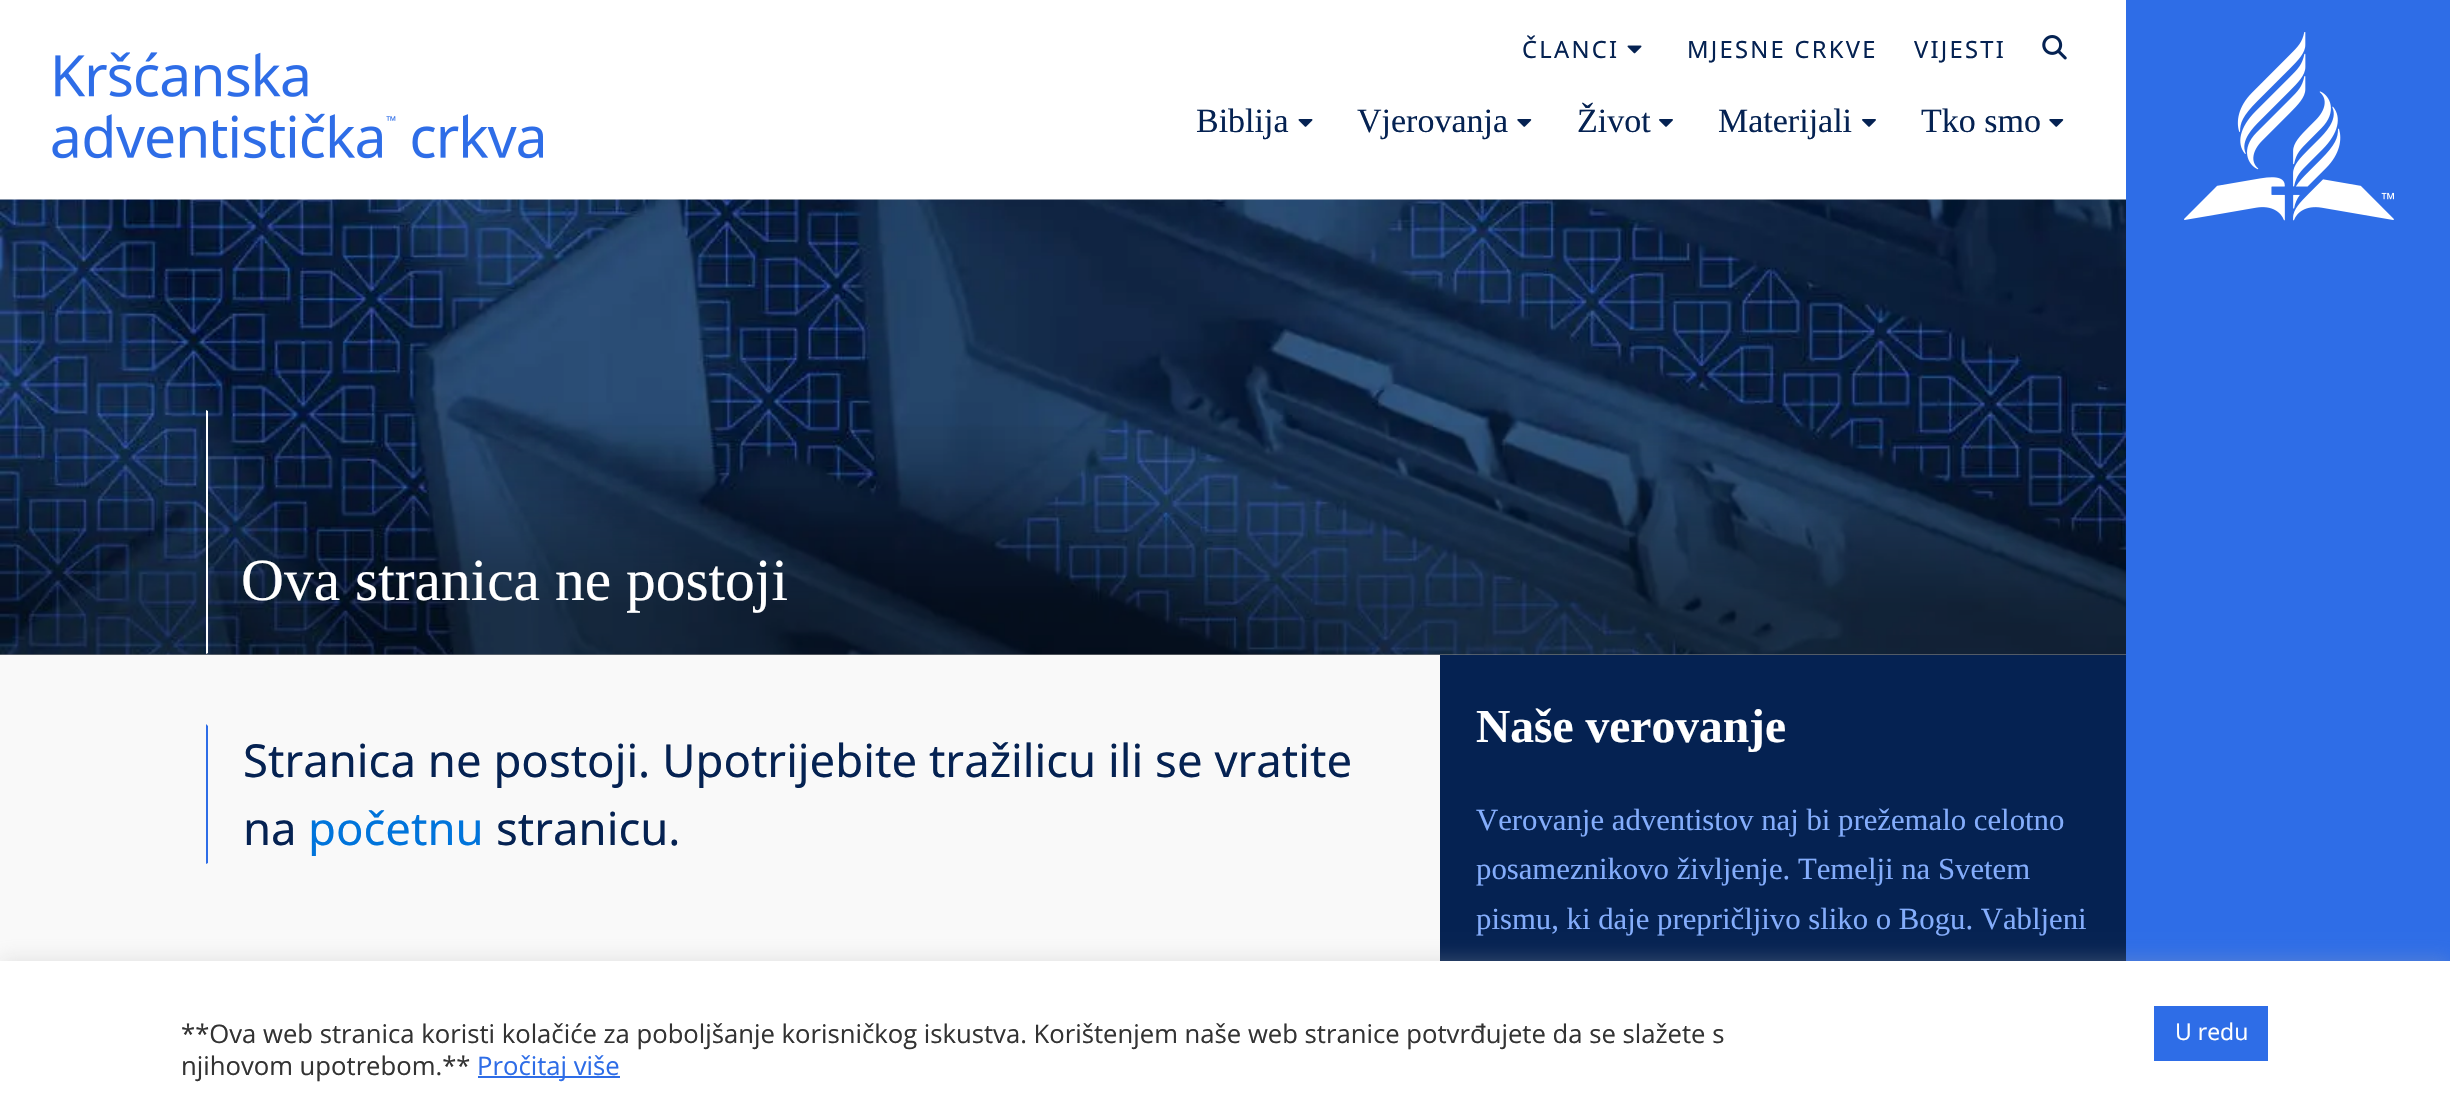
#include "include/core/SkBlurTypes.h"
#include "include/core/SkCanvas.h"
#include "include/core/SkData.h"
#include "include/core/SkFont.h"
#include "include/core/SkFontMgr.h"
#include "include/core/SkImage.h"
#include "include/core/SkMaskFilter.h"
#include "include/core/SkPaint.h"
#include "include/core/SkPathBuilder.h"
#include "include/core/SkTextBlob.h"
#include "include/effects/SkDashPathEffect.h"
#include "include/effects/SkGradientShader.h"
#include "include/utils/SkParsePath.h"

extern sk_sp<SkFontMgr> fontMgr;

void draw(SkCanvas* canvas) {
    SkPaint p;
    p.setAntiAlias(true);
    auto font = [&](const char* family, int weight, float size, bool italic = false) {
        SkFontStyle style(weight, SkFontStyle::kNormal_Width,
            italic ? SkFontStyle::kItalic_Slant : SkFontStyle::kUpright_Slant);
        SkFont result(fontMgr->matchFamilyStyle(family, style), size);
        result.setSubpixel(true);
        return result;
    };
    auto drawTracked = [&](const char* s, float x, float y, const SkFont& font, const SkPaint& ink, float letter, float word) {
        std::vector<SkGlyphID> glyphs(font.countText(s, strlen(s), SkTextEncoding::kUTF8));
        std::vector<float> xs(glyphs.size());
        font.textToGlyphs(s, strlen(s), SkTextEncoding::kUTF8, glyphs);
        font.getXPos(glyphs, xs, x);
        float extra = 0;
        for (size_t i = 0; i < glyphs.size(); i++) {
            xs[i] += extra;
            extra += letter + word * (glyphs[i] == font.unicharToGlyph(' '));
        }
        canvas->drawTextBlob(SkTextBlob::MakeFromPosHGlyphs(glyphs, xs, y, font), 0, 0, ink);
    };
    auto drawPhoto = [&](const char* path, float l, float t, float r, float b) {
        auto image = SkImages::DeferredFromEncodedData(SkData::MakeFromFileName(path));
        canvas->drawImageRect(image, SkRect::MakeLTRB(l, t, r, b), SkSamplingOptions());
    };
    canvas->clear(0xFFF9F9F9);
    p.setColor(0xFF2E6DE7);
    canvas->drawRect(SkRect::MakeLTRB(2126, 0, 2450, 961), p);
    p.setColor(0xFFFFFFFF);
    canvas->drawRect(SkRect::MakeLTRB(0, 0, 2126, 200), p);
    drawPhoto("media/1.png", 52, 52, 543, 159);
    auto font1 = font("Noto Sans", 400, 23.75f);
    p.setColor(0xFF052252);
    drawTracked("ČLANCI", 1522, 58, font1, p, 2.25f, 0);
    drawPhoto("media/2.png", 1627, 45, 1642, 54);
    drawTracked("MJESNE CRKVE", 1687, 58, font1, p, 2.25f, 0);
    drawTracked("VIJESTI", 1914, 58, font1, p, 2.25f, 0);
    drawPhoto("media/3.png", 2042, 35, 2067, 60);
    auto font2 = font("Liberation Serif", 400, 34);
    canvas->drawString("Biblija", 1196, 132, font2, p);
    drawPhoto("media/4.png", 1298, 119, 1313, 127);
    canvas->drawString("Vjerovanja", 1357, 132, font2, p);
    drawPhoto("media/5.png", 1517, 119, 1532, 127);
    canvas->drawString("Život", 1577, 132, font2, p);
    drawPhoto("media/6.png", 1659, 119, 1673, 127);
    canvas->drawString("Materijali", 1718, 132, font2, p);
    drawPhoto("media/6.png", 1862, 119, 1876, 127);
    canvas->drawString("Tko smo", 1921, 132, font2, p);
    drawPhoto("media/5.png", 2049, 119, 2064, 127);
    drawPhoto("media/7.png", 2184, 32, 2394, 221);
    drawPhoto("media/8.png", 0, 199, 2126, 655);
    {
        const SkColor colors[] = {0x00000000, 0x1A000000, 0x33000000, 0x66000000};
        const float stops[] = {0, 0.3f, 0.45f, 0.8f};
        const SkPoint ends[] = {{1063, 409}, {1063, 655}};
        p.setShader(SkGradientShader::MakeLinear(ends, colors, stops, 4, SkTileMode::kClamp));
        p.setAlpha(255);
    }
    canvas->drawRect(SkRect::MakeLTRB(0, 425, 2126, 655), p);
    p.setShader(nullptr);
    p.setColor(0xFFFFFFFF);
    canvas->drawPath(SkPathBuilder().moveTo(206, 654).lineTo(206, 410).lineTo(208, 411).lineTo(208, 653).close().detach(), p);
    auto font3 = font("Liberation Serif", 400, 59.5f);
    canvas->drawString("Ova stranica ne postoji", 241, 600, font3, p);
    p.setColor(0xFF2E6DE7);
    canvas->drawPath(SkPathBuilder().moveTo(206, 864).lineTo(206, 724).lineTo(208, 726).lineTo(208, 863).close().detach(), p);
    auto font4 = font("Noto Sans", 400, 45.5f);
    p.setColor(0xFF052252);
    canvas->drawString("Stranica ne postoji. Upotrijebite tražilicu ili se vratite", 243, 777, font4, p);
    canvas->drawString("na", 243, 845, font4, p);
    p.setColor(0xFF0074DB);
    canvas->drawString("početnu", 308, 845, font4, p);
    p.setColor(0xFF052252);
    canvas->drawString("stranicu.", 496, 845, font4, p);
    canvas->drawRect(SkRect::MakeLTRB(1440, 655, 2126, 961), p);
    auto font5 = font("Liberation Serif", 700, 47.5f);
    p.setColor(0xFFFFFFFF);
    canvas->drawString("Naše verovanje", 1476, 742, font5, p);
    auto font6 = font("Liberation Serif", 400, 30.75f);
    p.setColor(0xFF84ADFC);
    {
        const struct { const char* s; float x, y; } items[] = {
            {"Verovanje adventistov naj bi prežemalo celotno", 1476, 830},
            {"posameznikovo življenje. Temelji na Svetem", 1476, 879},
            {"pismu, ki daje prepričljivo sliko o Bogu. Vabljeni", 1476, 929},
        };
        for (auto [s, x, y] : items) {
            canvas->drawString(s, x, y, font6, p);
        }
    }
    p.setColor(0x4DACABAB);
    p.setMaskFilter(SkMaskFilter::MakeBlur(kNormal_SkBlurStyle, 9));
    canvas->drawRect(SkRect::MakeLTRB(0, 959, 2450, 1103), p);
    p.setMaskFilter(nullptr);
    p.setColor(0xFFFFFFFF);
    canvas->drawRect(SkRect::MakeLTRB(0, 961, 2450, 1104), p);
    auto font7 = font("Open Sans", 400, 25.67f);
    p.setColor(0xFF333333);
    canvas->drawString("**Ova web stranica koristi kolačiće za poboljšanje korisničkog iskustva. Korištenjem naše web stranice potvrđujete da se slažete s", 181, 1043, font7, p);
    canvas->drawString("njihovom upotrebom.**", 181, 1075, font7, p);
    p.setColor(0xFF2E6DE7);
    canvas->drawRect(SkRect::MakeLTRB(478, 1076, 620, 1078), p);
    canvas->drawString("Pročitaj više", 477, 1075, font7, p);
    canvas->drawRect(SkRect::MakeLTRB(2154, 1006, 2268, 1061), p);
    auto font8 = font("Open Sans", 400, 23);
    p.setColor(0xFFFFFFFF);
    canvas->drawString("U redu", 2175, 1040, font8, p);
}
